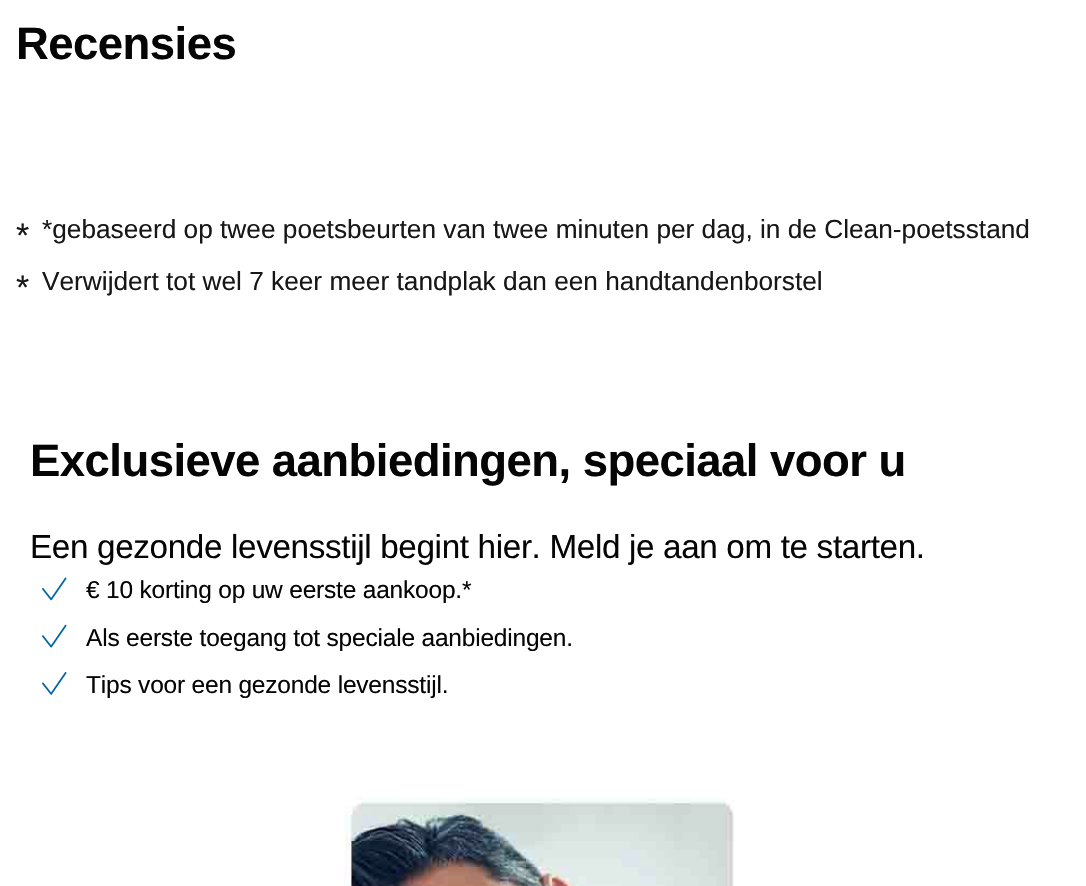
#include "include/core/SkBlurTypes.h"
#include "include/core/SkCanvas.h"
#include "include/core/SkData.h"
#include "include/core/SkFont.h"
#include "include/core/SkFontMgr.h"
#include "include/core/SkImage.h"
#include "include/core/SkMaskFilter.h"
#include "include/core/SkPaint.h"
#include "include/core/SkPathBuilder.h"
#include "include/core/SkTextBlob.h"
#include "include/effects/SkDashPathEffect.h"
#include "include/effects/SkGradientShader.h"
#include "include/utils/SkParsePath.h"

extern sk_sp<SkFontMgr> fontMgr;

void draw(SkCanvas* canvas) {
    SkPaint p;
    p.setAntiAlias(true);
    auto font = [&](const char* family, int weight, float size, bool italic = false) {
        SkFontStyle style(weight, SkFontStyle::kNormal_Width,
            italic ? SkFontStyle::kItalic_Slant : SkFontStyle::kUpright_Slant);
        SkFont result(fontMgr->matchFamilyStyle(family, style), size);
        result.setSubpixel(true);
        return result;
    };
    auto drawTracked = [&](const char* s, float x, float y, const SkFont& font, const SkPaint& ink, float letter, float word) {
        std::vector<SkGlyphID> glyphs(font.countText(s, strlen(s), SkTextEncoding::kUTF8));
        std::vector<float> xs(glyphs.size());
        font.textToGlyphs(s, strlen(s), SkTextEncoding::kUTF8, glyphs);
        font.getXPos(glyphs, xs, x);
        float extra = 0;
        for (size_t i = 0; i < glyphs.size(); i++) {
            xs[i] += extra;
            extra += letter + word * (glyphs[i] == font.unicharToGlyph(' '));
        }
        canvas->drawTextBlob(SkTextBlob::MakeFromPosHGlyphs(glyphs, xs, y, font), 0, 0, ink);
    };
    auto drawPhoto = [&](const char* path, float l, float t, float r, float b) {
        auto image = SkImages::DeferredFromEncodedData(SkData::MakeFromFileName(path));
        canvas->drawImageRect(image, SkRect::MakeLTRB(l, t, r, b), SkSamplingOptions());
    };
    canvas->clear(0xFFFFFFFF);
    auto font1 = font("Liberation Sans", 700, 45.5f);
    p.setColor(0xFF050505);
    drawTracked("Recensies", 16, 59, font1, p, -0.55f, 0);
    auto font2 = font("Liberation Sans", 400, 34);
    p.setColor(0xFF171717);
    canvas->drawString("*", 16, 247, font2, p);
    auto font3 = font("Liberation Sans", 400, 26.25f);
    canvas->drawString("*gebaseerd op twee poetsbeurten van twee minuten per dag, in de Clean-poetsstand", 42, 238, font3, p);
    canvas->drawString("*", 16, 299, font2, p);
    canvas->drawString("Verwijdert tot wel 7 keer meer tandplak dan een handtandenborstel", 42, 290, font3, p);
    p.setColor(0xFF050505);
    drawTracked("Exclusieve aanbiedingen, speciaal voor u", 30, 476, font1, p, -0.55f, 0);
    auto font4 = font("Liberation Sans", 400, 33.25f);
    drawTracked("Een gezonde levensstijl begint hier. Meld je aan om te starten.", 30, 558, font4, p, -0.35f, 0);
    drawPhoto("media/1.png", 42, 577, 67, 601);
    auto font5 = font("Liberation Sans", 400, 24.5f);
    drawTracked("€ 10 korting op uw eerste aankoop.*", 86, 598, font5, p, -0.2f, 0);
    drawPhoto("media/2.png", 42, 624, 67, 648);
    drawTracked("Als eerste toegang tot speciale aanbiedingen.", 86, 646, font5, p, -0.2f, 0);
    drawPhoto("media/3.png", 42, 672, 67, 695);
    drawTracked("Tips voor een gezonde levensstijl.", 86, 693, font5, p, -0.2f, 0);
    drawPhoto("media/4.png", 344, 797, 734, 886);
}
